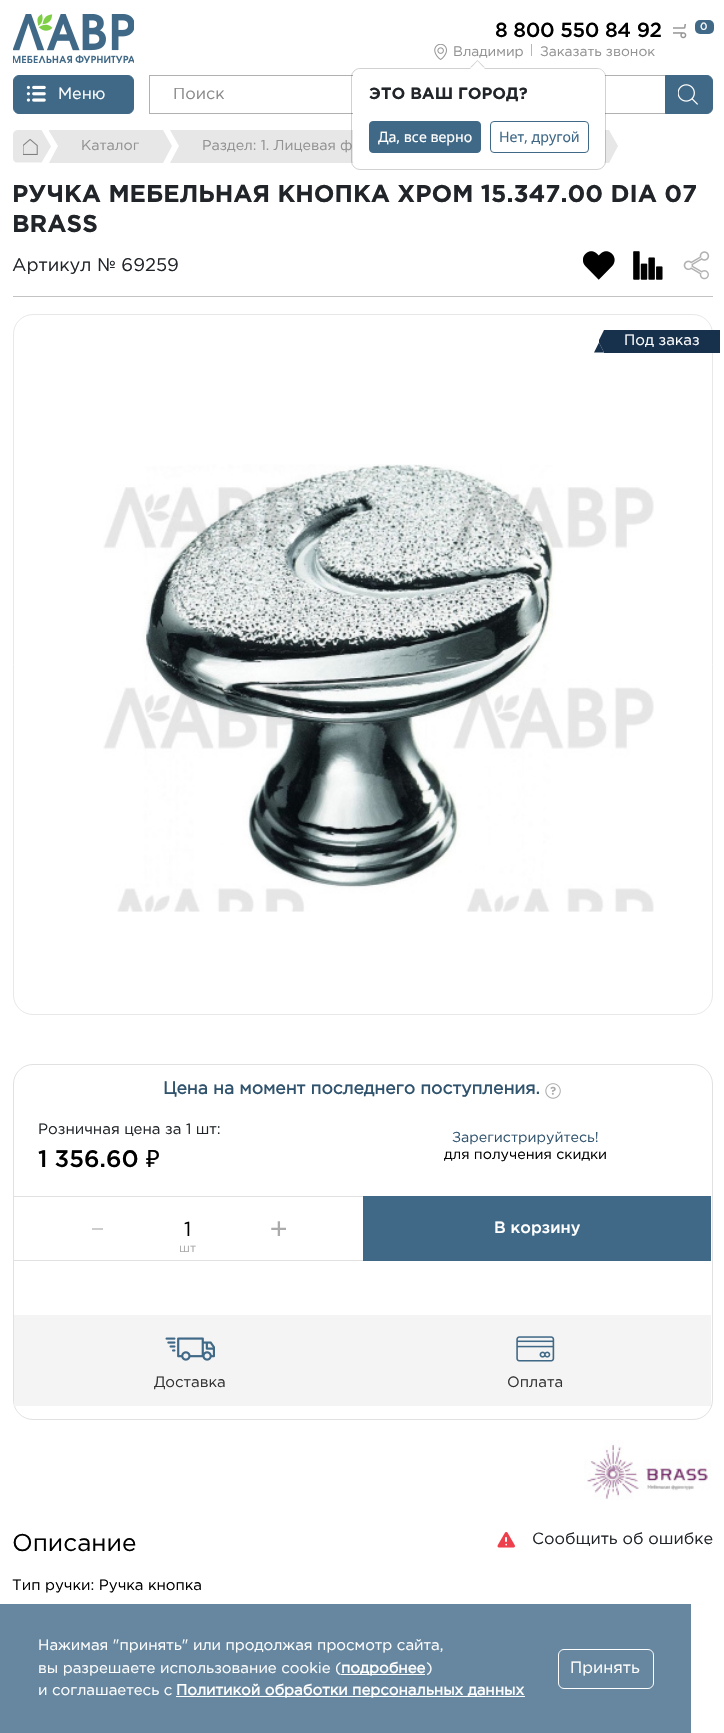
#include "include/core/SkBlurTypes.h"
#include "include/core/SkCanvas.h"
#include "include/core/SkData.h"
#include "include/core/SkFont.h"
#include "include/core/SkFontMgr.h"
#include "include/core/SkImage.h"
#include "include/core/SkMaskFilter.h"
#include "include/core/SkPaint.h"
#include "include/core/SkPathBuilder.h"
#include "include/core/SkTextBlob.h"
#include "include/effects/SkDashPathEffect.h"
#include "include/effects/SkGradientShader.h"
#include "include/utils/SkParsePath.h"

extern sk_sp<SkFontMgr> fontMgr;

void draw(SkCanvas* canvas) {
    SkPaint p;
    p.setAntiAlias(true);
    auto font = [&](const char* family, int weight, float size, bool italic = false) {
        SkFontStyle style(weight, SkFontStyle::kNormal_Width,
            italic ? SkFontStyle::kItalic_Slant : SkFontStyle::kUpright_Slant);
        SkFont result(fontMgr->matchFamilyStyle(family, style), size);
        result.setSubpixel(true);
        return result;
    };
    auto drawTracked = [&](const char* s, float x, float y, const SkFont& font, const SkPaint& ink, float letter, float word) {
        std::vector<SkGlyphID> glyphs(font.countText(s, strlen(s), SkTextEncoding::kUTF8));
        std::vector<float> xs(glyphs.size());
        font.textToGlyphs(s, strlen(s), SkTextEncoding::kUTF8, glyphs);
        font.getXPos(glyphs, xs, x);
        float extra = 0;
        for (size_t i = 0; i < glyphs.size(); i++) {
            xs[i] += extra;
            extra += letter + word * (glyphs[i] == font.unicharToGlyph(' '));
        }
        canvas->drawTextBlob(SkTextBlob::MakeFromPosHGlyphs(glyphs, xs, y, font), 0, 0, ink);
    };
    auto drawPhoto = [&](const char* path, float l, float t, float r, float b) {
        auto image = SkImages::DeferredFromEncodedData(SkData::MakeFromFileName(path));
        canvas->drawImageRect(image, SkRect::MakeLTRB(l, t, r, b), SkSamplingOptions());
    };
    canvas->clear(0xFFFFFFFF);
    drawPhoto("media/1.png", 13, 14, 134, 63);
    auto font1 = font("Gotham", 500, 20.25f);
    p.setColor(0xFF000000);
    drawTracked("8 800 550 84 92", 495, 37, font1, p, -0.3f, 0);
    drawPhoto("media/2.png", 673, 24, 687, 39);
    p.setColor(0xFF406987);
    canvas->drawRoundRect(SkRect::MakeLTRB(695, 20, 714, 34), 5, 5, p);
    auto font2 = font("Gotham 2", 700, 10);
    p.setColor(0xFFFFFFFF);
    canvas->drawString("0", 700, 30, font2, p);
    drawPhoto("media/3.png", 434, 44, 447, 60);
    auto font3 = font("Gotham", 400, 13.75f);
    p.setColor(0xFF929292);
    canvas->drawString("Владимир", 453, 56, font3, p);
    p.setColor(0xFFB7B7B7);
    canvas->drawRect(SkRect::MakeLTRB(531, 44, 532, 56), p);
    p.setColor(0xFF929292);
    canvas->drawString("Заказать звонок", 540, 56, font3, p);
    p.setColor(0xFF406987);
    canvas->drawRoundRect(SkRect::MakeLTRB(13.5f, 75.5f, 133.5f, 113.5f), 5.5f, 5.5f, p);
    p.setStyle(SkPaint::kStroke_Style);
    p.setStrokeWidth(1);
    canvas->drawRoundRect(SkRect::MakeLTRB(13.5f, 75.5f, 133.5f, 113.5f), 5.5f, 5.5f, p);
    drawPhoto("media/4.png", 26, 85, 46, 102);
    auto font4 = font("Gotham", 400, 16.25f);
    p.setStyle(SkPaint::kFill_Style);
    p.setColor(0xFFFFFFFF);
    canvas->drawString("Меню", 58, 99, font4, p);
    p.setStyle(SkPaint::kStroke_Style);
    p.setColor(0xFFB1B1B1);
    canvas->drawRect(SkRect::MakeLTRB(149.5f, 75.5f, 665.5f, 113.5f), p);
    canvas->save();
    canvas->clipRect(SkRect::MakeLTRB(173, 88, 646, 103));
    p.setStyle(SkPaint::kFill_Style);
    p.setColor(0xFF898989);
    canvas->drawString("Поиск", 173, 99, font4, p);
    canvas->restore();
    p.setColor(0xFF406987);
    canvas->drawPath(SkPathBuilder().moveTo(665.5f, 75.5f).lineTo(707, 75.5f).cubicTo(710, 75.5f, 712.5f, 78, 712.5f, 81).lineTo(712.5f, 108).cubicTo(712.5f, 111, 710, 113.5f, 707, 113.5f).lineTo(665.5f, 113.5f).close().detach(), p);
    p.setStyle(SkPaint::kStroke_Style);
    canvas->drawPath(SkPathBuilder().moveTo(665.5f, 75.5f).lineTo(707, 75.5f).cubicTo(710, 75.5f, 712.5f, 78, 712.5f, 81).lineTo(712.5f, 108).cubicTo(712.5f, 111, 710, 113.5f, 707, 113.5f).lineTo(665.5f, 113.5f).close().detach(), p);
    drawPhoto("media/5.png", 678, 84, 698, 105);
    p.setStyle(SkPaint::kFill_Style);
    p.setColor(0xFFE7E7E7);
    canvas->drawPath(SkPathBuilder().moveTo(16, 162.5f).cubicTo(14, 162, 13, 160, 13, 158).lineTo(13, 135).cubicTo(13, 132.5f, 14.5f, 130.5f, 17, 130).lineTo(41.5f, 130).lineTo(51, 146.5f).lineTo(41.5f, 162.5f).close().detach(), p);
    canvas->drawPath(SkPathBuilder().moveTo(49, 131).lineTo(49, 130).lineTo(163, 130).lineTo(172, 146).lineTo(163, 163).lineTo(49, 163).lineTo(58, 146).close().detach(), p);
    canvas->drawPath(SkPathBuilder().moveTo(170, 130).lineTo(445, 130).lineTo(454, 146).lineTo(445, 163).lineTo(170, 163).lineTo(179, 146).close().detach(), p);
    canvas->drawPath(SkPathBuilder().moveTo(452, 130).lineTo(461, 146).lineTo(452, 163).lineTo(609, 163).lineTo(618, 146).lineTo(609, 130).close().detach(), p);
    p.setColor(0xFFFFFFFF);
    canvas->drawRoundRect(SkRect::MakeLTRB(353, 69, 605, 169), 8, 8, p);
    auto font5 = font("Gotham", 400, 14.25f);
    p.setColor(0xFF929292);
    canvas->drawString("Раздел: 1. Лицевая ф", 202, 150, font5, p);
    p.setStyle(SkPaint::kStroke_Style);
    p.setColor(0x2E000000);
    canvas->drawRoundRect(SkRect::MakeLTRB(351.5f, 68.5f, 605.5f, 169.5f), 8.5f, 8.5f, p);
    p.setStyle(SkPaint::kFill_Style);
    p.setColor(0xFFD2D2D2);
    canvas->drawPath(SkPathBuilder().moveTo(485, 67.5f).lineTo(470, 67.5f).lineTo(477.5f, 60).close().detach(), p);
    p.setColor(0xFFFFFFFF);
    canvas->drawPath(SkPathBuilder().moveTo(485, 69).lineTo(470, 69).lineTo(477.5f, 61).close().detach(), p);
    canvas->drawPath(SkPathBuilder().moveTo(361, 69).lineTo(597, 69).cubicTo(601.5f, 69, 605, 72.5f, 605, 77).lineTo(605, 121).lineTo(353, 121).lineTo(353, 77).cubicTo(353, 72.5f, 356.5f, 69, 361, 69).close().detach(), p);
    auto font6 = font("Gotham", 700, 16.25f);
    p.setColor(0xFF212529);
    canvas->drawString("ЭТО ВАШ ГОРОД?", 369, 99, font6, p);
    p.setColor(0xFF406987);
    canvas->drawRoundRect(SkRect::MakeLTRB(369.5f, 121.5f, 480.5f, 152.5f), 3.5f, 3.5f, p);
    p.setStyle(SkPaint::kStroke_Style);
    canvas->drawRoundRect(SkRect::MakeLTRB(369.5f, 121.5f, 480.5f, 152.5f), 3.5f, 3.5f, p);
    auto font7 = font("Noto Sans", 400, 14.25f);
    p.setStyle(SkPaint::kFill_Style);
    p.setColor(0xFFFFFFFF);
    canvas->drawString("Да, все верно", 378, 142, font7, p);
    p.setStyle(SkPaint::kStroke_Style);
    p.setColor(0xFF406987);
    canvas->drawRoundRect(SkRect::MakeLTRB(490.5f, 121.5f, 588.5f, 152.5f), 3.5f, 3.5f, p);
    p.setStyle(SkPaint::kFill_Style);
    canvas->drawString("Нет, другой", 499, 142, font7, p);
    drawPhoto("media/6.png", 23, 139, 38, 155);
    p.setColor(0xFF929292);
    canvas->drawString("Каталог", 81, 150, font5, p);
    p.setColor(0xFFC3C3C3);
    canvas->drawRect(SkRect::MakeLTRB(13, 296, 713, 297), p);
    auto font8 = font("Gotham", 700, 24.4f);
    p.setColor(0xFF212529);
    canvas->drawString("РУЧКА МЕБЕЛЬНАЯ КНОПКА ХРОМ 15.347.00 DIA 07", 12, 202, font8, p);
    canvas->drawString("BRASS", 12, 232, font8, p);
    auto font9 = font("Gotham", 400, 18.25f);
    canvas->drawString("Артикул № 69259", 12, 271, font9, p);
    drawPhoto("media/7.png", 583, 251, 615, 280);
    drawPhoto("media/8.png", 633, 251, 663, 280);
    drawPhoto("media/9.png", 683, 251, 710, 280);
    p.setStyle(SkPaint::kStroke_Style);
    p.setColor(0xFFE8E8E8);
    canvas->drawRoundRect(SkRect::MakeLTRB(13.5f, 314.5f, 712.5f, 1014.5f), 19.5f, 19.5f, p);
    drawPhoto("media/10.png", 103, 464, 654, 912);
    p.setStyle(SkPaint::kFill_Style);
    p.setColor(0xFF17314C);
    canvas->drawRect(SkRect::MakeLTRB(604, 330, 720, 353), p);
    canvas->drawPath(SkPathBuilder().moveTo(604, 330).lineTo(604, 352.5f).lineTo(599, 342.5f).lineTo(599, 340).close().detach(), p);
    canvas->drawPath(SkPathBuilder().moveTo(604, 352.5f).lineTo(594, 352.5f).lineTo(599, 342.5f).close().detach(), p);
    auto font10 = font("Gotham", 400, 15);
    p.setColor(0xFFFFFFFF);
    canvas->drawString("Под заказ", 624, 345, font10, p);
    p.setStyle(SkPaint::kStroke_Style);
    p.setColor(0xFFE1E1E1);
    canvas->drawRoundRect(SkRect::MakeLTRB(13.5f, 1064.5f, 712.5f, 1419.5f), 19.5f, 19.5f, p);
    auto font11 = font("Gotham 2", 700, 17.5f);
    p.setStyle(SkPaint::kFill_Style);
    p.setColor(0xFF30536D);
    canvas->drawString("Цена на момент последнего поступления.", 163, 1094, font11, p);
    drawPhoto("media/11.png", 545, 1083, 561, 1099);
    p.setColor(0xFF212529);
    canvas->drawString("Розничная цена за 1 шт:", 38, 1134, font10, p);
    auto font12 = font("Gotham", 500, 23.75f);
    p.setColor(0xFF000000);
    canvas->drawString("1 356.60", 38, 1167, font12, p);
    auto font13 = font("Noto Sans", 400, 23.75f);
    canvas->drawString("₽", 146, 1167, font13, p);
    p.setColor(0xFF30536D);
    canvas->drawString("Зарегистрируйтесь!", 452, 1142, font5, p);
    p.setColor(0xFF000000);
    canvas->drawString("для получения скидки", 444, 1159, font5, p);
    {
        const struct { float l, t, r, b; SkColor color; } items[] = {
            {14, 1196, 363, 1197, 0xFFE1E1E1},
            {14, 1260, 363, 1261, 0xFFE1E1E1},
            {92, 1228, 103, 1230, 0xFFCDCDCD},
        };
        for (auto [l, t, r, b, color] : items) {
            p.setColor(color);
            canvas->drawRect(SkRect::MakeLTRB(l, t, r, b), p);
        }
    }
    auto font14 = font("Gotham", 400, 20.25f);
    p.setColor(0xFF000000);
    canvas->drawString("1", 184, 1236, font14, p);
    auto font15 = font("Gotham", 400, 12);
    p.setColor(0xFFAAAAAA);
    canvas->drawString("шт", 179, 1252, font15, p);
    drawPhoto("media/12.png", 271, 1221, 286, 1236);
    p.setColor(0xFF406987);
    canvas->drawRect(SkRect::MakeLTRB(363, 1196, 711, 1261), p);
    auto font16 = font("Gotham", 500, 16.25f);
    p.setColor(0xFFFFFFFF);
    canvas->drawString("В корзину", 494, 1233, font16, p);
    p.setColor(0xFFF4F4F4);
    canvas->drawRect(SkRect::MakeLTRB(14, 1315, 711, 1406), p);
    drawPhoto("media/13.png", 165, 1337, 215, 1361);
    p.setColor(0xFF333333);
    canvas->drawString("Доставка", 154, 1387, font10, p);
    drawPhoto("media/14.png", 516, 1336, 555, 1362);
    canvas->drawString("Оплата", 507, 1387, font10, p);
    drawPhoto("media/15.png", 584, 1440, 711, 1500);
    auto font17 = font("Gotham", 400, 24.4f);
    p.setColor(0xFF000000);
    canvas->drawString("Описание", 12, 1551, font17, p);
    canvas->drawString("Тип ручки: Ручка кнопка", 12, 1590, font10, p);
    drawPhoto("media/16.png", 497, 1532, 515, 1548);
    p.setColor(0xFF212529);
    canvas->drawString("Сообщить об ошибке", 532, 1544, font4, p);
    p.setColor(0xCC406987);
    canvas->drawRect(SkRect::MakeLTRB(0, 1604, 691, 1733), p);
    p.setColor(0xFFFFFFFF);
    canvas->drawString("Нажимая \"принять\" или продолжая просмотр сайта,", 38, 1650, font10, p);
    canvas->drawString("вы разрешаете использование cookie (", 38, 1673, font10, p);
    canvas->drawRect(SkRect::MakeLTRB(341, 1674, 425, 1675), p);
    auto font18 = font("Gotham 2", 700, 15);
    canvas->drawString("подробнее", 341, 1673, font18, p);
    canvas->drawString(")", 426, 1673, font10, p);
    canvas->drawString("и соглашаетесь с", 38, 1695, font10, p);
    canvas->drawRect(SkRect::MakeLTRB(176, 1696, 525, 1697), p);
    canvas->drawString("Политикой обработки персональных данных", 176, 1695, font18, p);
    p.setStyle(SkPaint::kStroke_Style);
    canvas->drawRoundRect(SkRect::MakeLTRB(558.5f, 1649.5f, 653.5f, 1688.5f), 5.5f, 5.5f, p);
    p.setStyle(SkPaint::kFill_Style);
    canvas->drawString("Принять", 570, 1673, font4, p);
}
